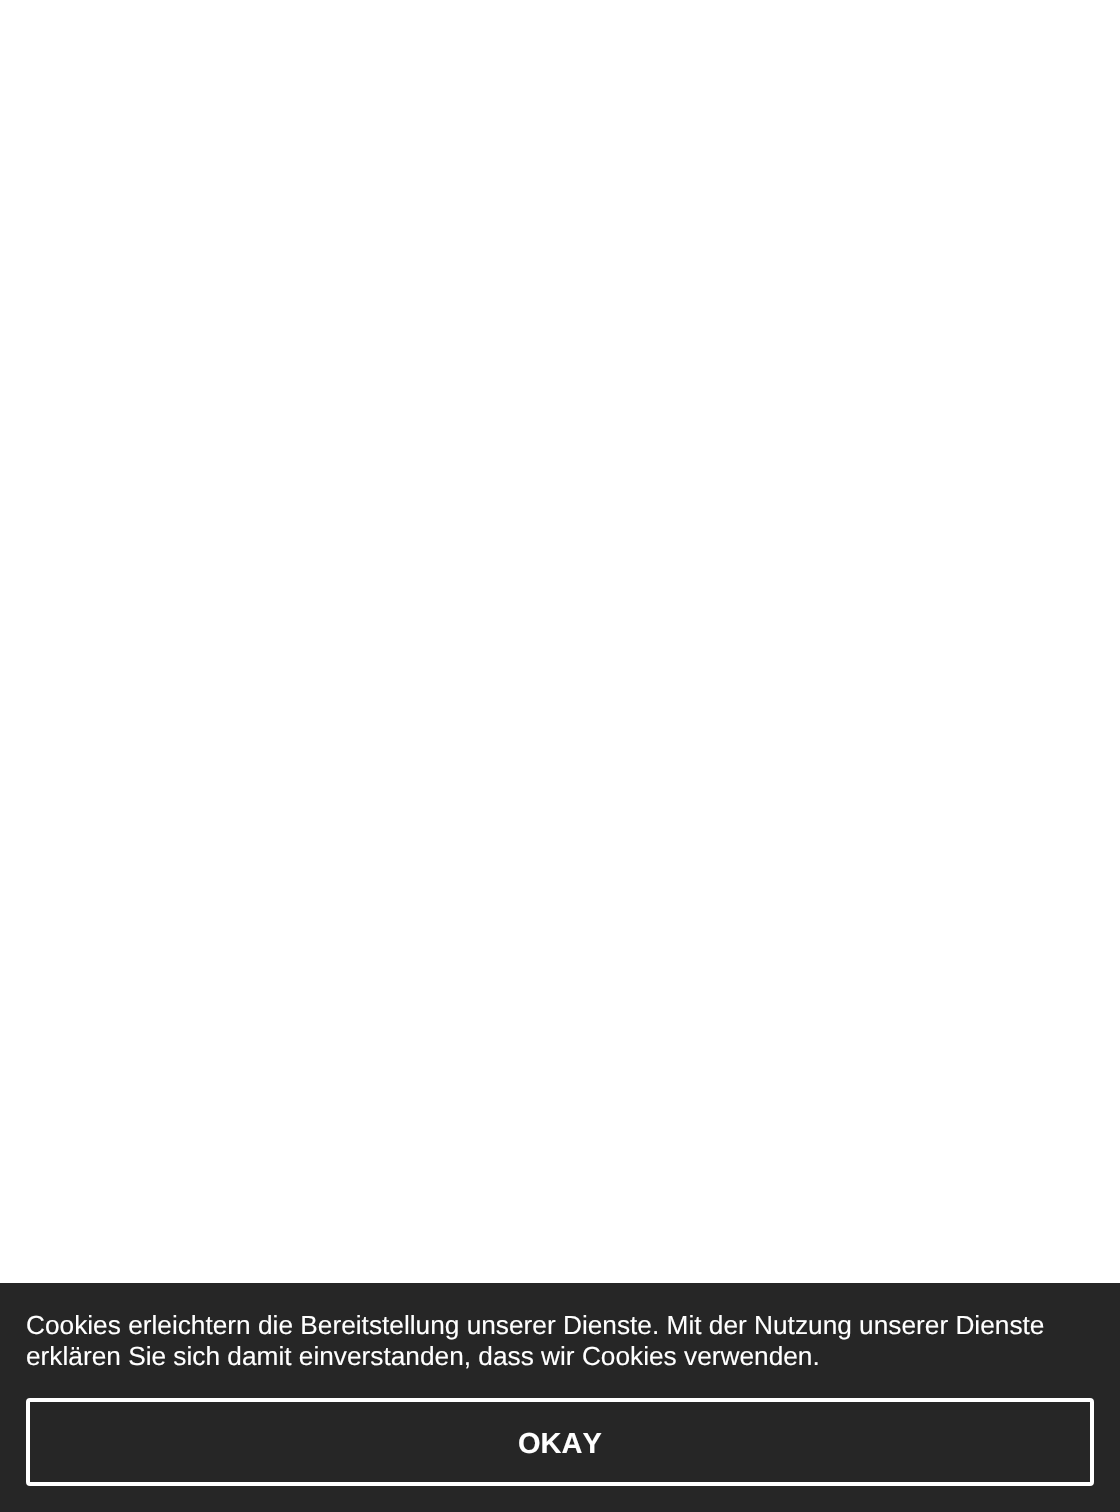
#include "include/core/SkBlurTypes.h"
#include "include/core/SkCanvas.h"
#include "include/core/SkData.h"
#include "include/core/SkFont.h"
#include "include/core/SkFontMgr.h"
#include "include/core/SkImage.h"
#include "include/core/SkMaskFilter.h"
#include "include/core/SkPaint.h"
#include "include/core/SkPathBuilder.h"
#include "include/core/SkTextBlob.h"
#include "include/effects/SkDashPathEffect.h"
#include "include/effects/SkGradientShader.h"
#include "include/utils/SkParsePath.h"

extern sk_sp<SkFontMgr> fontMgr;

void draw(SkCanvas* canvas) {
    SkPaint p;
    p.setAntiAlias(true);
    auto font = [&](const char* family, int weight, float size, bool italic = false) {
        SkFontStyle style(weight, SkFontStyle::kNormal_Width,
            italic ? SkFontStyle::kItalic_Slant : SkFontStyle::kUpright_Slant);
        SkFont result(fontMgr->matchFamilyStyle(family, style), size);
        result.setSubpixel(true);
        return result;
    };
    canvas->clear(0xFFFFFFFF);
    p.setColor(0xFF262626);
    canvas->drawRect(SkRect::MakeLTRB(0, 1283, 1120, 1512), p);
    auto font1 = font("Arimo", 400, 26.25f);
    p.setColor(0xFFFFFFFF);
    canvas->drawString("Cookies erleichtern die Bereitstellung unserer Dienste. Mit der Nutzung unserer Dienste", 26, 1334, font1, p);
    canvas->drawString("erklären Sie sich damit einverstanden, dass wir Cookies verwenden.", 26, 1365, font1, p);
    p.setStyle(SkPaint::kStroke_Style);
    p.setStrokeWidth(4);
    canvas->drawRoundRect(SkRect::MakeLTRB(28, 1400, 1092, 1484), 2, 2, p);
    auto font2 = font("Arimo", 700, 29);
    p.setStyle(SkPaint::kFill_Style);
    canvas->drawString("OKAY", 518, 1453, font2, p);
}
